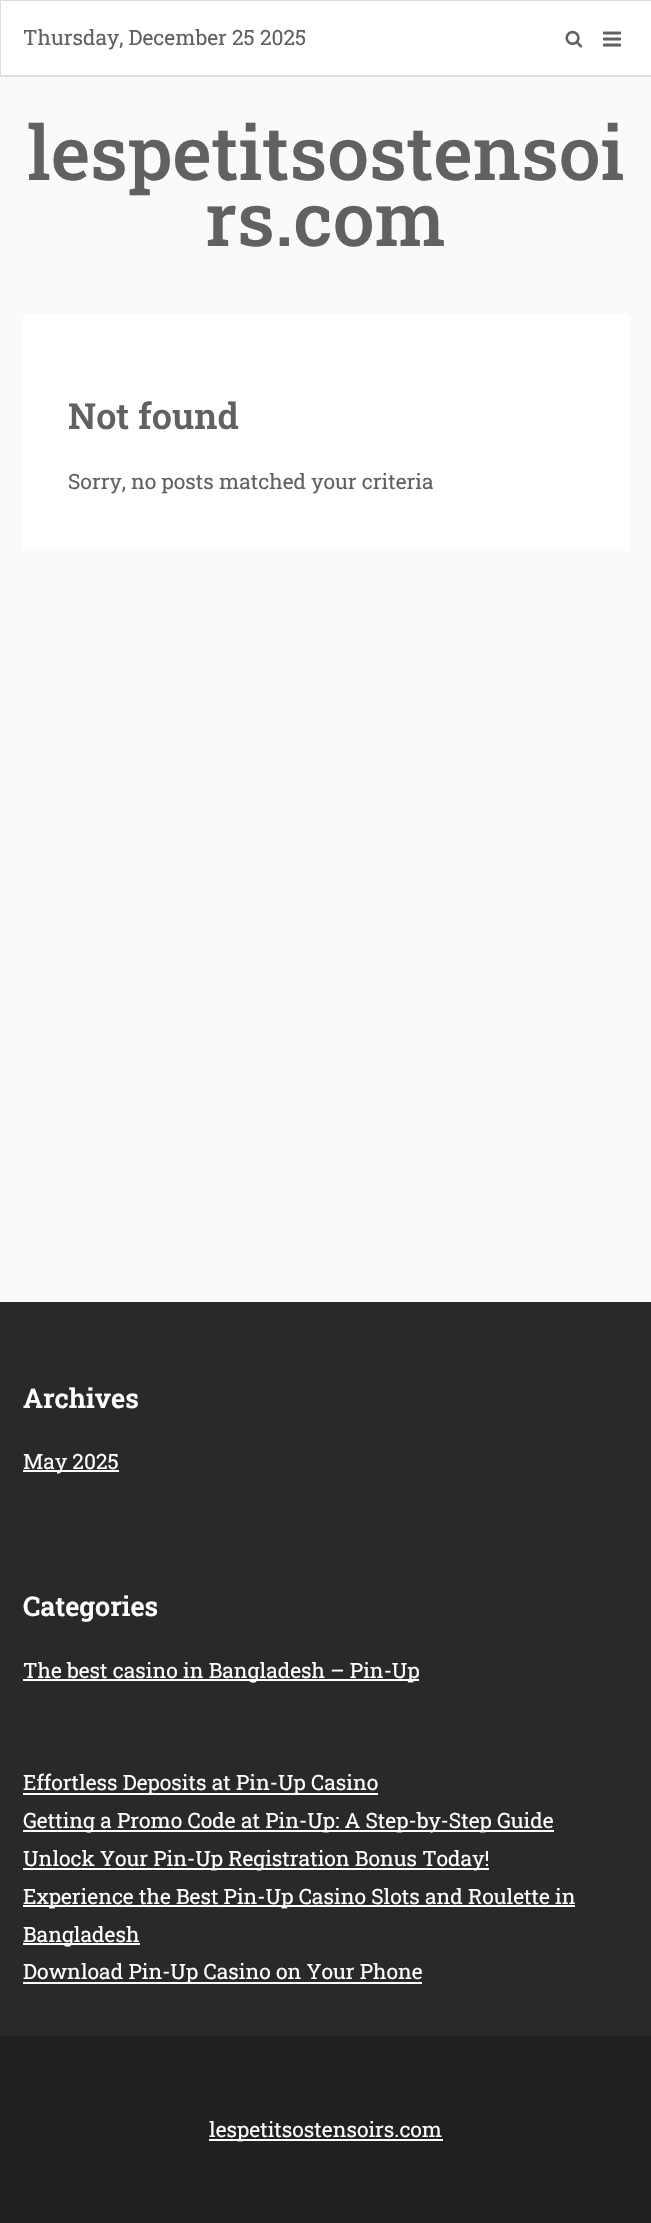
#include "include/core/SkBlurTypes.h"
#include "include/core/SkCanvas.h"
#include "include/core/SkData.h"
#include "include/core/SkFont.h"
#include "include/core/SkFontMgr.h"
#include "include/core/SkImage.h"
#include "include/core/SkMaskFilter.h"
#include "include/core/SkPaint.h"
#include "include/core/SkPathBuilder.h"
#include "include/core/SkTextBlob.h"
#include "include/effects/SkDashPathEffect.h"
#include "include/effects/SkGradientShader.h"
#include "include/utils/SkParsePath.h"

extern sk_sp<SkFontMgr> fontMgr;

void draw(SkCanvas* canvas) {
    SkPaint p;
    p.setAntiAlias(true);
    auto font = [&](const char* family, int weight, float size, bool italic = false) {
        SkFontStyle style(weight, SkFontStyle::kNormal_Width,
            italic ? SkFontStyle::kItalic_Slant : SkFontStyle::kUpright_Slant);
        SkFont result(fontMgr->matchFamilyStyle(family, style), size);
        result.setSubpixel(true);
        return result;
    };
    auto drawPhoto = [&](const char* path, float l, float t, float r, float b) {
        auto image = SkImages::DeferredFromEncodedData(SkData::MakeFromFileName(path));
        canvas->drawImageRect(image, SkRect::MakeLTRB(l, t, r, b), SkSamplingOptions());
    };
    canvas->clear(0xFFFAFAFA);
    p.setColor(0xFFFFFFFF);
    canvas->drawRect(SkRect::MakeLTRB(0, 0, 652, 76), p);
    p.setStyle(SkPaint::kStroke_Style);
    p.setStrokeWidth(2);
    p.setColor(0xFFDDDDDD);
    canvas->drawRect(SkRect::MakeLTRB(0, 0, 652, 76), p);
    auto font1 = font("Roboto Slab", 400, 21);
    p.setStyle(SkPaint::kFill_Style);
    p.setColor(0xFF616161);
    canvas->drawString("Thursday, December 25 2025", 23, 45, font1, p);
    drawPhoto("media/1.png", 565, 30, 583, 48);
    drawPhoto("media/2.png", 603, 31, 621, 47);
    auto font2 = font("Roboto Slab", 500, 75);
    canvas->drawString("lespetitsostensoi", 27, 180, font2, p);
    canvas->drawString("rs.com", 205, 246, font2, p);
    p.setColor(0xFFFFFFFF);
    canvas->drawRect(SkRect::MakeLTRB(23, 314, 629, 551), p);
    auto font3 = font("Roboto Slab", 600, 36);
    p.setColor(0xFF616161);
    canvas->drawString("Not found", 68, 429, font3, p);
    canvas->drawString("Sorry, no posts matched your criteria", 68, 489, font1, p);
    p.setColor(0xFF212121);
    canvas->drawRect(SkRect::MakeLTRB(0, 2036, 651, 2223), p);
    p.setColor(0xFF292929);
    canvas->drawRect(SkRect::MakeLTRB(0, 1302, 651, 2036), p);
    auto font4 = font("Roboto Slab", 600, 27);
    p.setColor(0xFFFFFFFF);
    canvas->drawString("Archives", 23, 1408, font4, p);
    canvas->drawRect(SkRect::MakeLTRB(23, 1470, 119, 1472), p);
    canvas->drawString("May 2025", 23, 1469, font1, p);
    canvas->drawString("Categories", 23, 1616, font4, p);
    canvas->drawRect(SkRect::MakeLTRB(23, 1679, 419, 1681), p);
    canvas->drawString("The best casino in Bangladesh – Pin-Up", 23, 1678, font1, p);
    canvas->drawRect(SkRect::MakeLTRB(23, 1793, 378, 1795), p);
    canvas->drawString("Effortless Deposits at Pin-Up Casino", 23, 1790, font1, p);
    canvas->drawRect(SkRect::MakeLTRB(23, 1830, 554, 1832), p);
    canvas->drawString("Getting a Promo Code at Pin-Up: A Step-by-Step Guide", 23, 1828, font1, p);
    canvas->drawRect(SkRect::MakeLTRB(23, 1868, 489, 1870), p);
    canvas->drawString("Unlock Your Pin-Up Registration Bonus Today!", 23, 1866, font1, p);
    canvas->drawRect(SkRect::MakeLTRB(23, 1905, 575, 1907), p);
    canvas->drawString("Experience the Best Pin-Up Casino Slots and Roulette in", 23, 1904, font1, p);
    canvas->drawRect(SkRect::MakeLTRB(23, 1943, 140, 1945), p);
    canvas->drawString("Bangladesh", 23, 1942, font1, p);
    canvas->drawRect(SkRect::MakeLTRB(23, 1982, 422, 1984), p);
    canvas->drawString("Download Pin-Up Casino on Your Phone", 23, 1979, font1, p);
    canvas->drawRect(SkRect::MakeLTRB(209, 2139, 443, 2141), p);
    canvas->drawString("lespetitsostensoirs.com", 209, 2137, font1, p);
}
